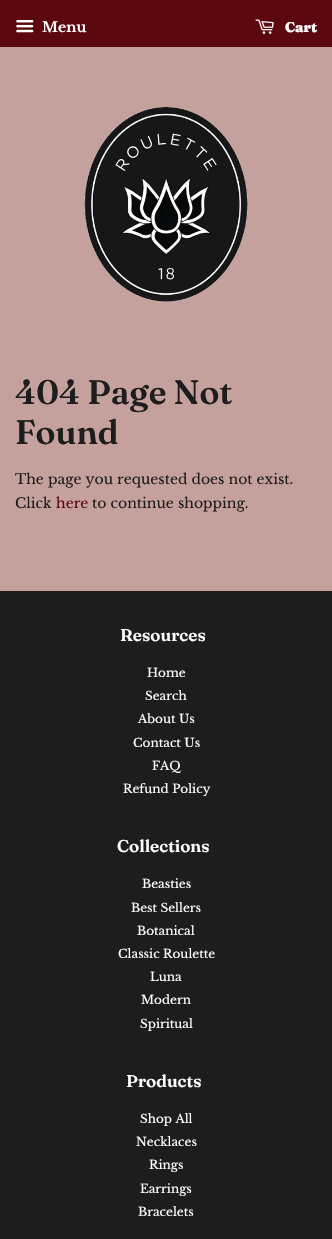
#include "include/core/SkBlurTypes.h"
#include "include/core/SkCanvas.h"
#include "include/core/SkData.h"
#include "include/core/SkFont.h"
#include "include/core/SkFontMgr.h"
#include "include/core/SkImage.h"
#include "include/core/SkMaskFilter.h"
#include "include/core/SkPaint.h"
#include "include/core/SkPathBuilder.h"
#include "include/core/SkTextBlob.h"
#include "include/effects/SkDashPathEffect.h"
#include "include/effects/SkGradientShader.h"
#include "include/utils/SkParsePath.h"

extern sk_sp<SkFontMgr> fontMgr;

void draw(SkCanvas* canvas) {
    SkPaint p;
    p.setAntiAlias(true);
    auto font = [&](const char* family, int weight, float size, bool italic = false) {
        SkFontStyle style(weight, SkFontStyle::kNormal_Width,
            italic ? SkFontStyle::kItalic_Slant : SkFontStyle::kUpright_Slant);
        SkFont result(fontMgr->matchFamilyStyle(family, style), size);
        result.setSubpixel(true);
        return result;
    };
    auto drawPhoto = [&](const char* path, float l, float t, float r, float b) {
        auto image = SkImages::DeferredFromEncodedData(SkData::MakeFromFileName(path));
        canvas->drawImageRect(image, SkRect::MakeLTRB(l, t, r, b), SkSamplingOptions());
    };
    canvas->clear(0xFFC5A19D);
    p.setColor(0xFF5B090E);
    canvas->drawRect(SkRect::MakeLTRB(0, 0, 332, 47), p);
    drawPhoto("media/1.png", 16, 20, 34, 33);
    auto font1 = font("Libre Baskerville", 700, 14);
    p.setColor(0xFFFFFFFF);
    canvas->drawString("Menu", 42, 32, font1, p);
    drawPhoto("media/2.png", 255, 19, 274, 34);
    auto font2 = font("Fraunces", 900, 14);
    canvas->drawString("Cart", 285, 32, font2, p);
    drawPhoto("media/3.png", 84, 107, 248, 302);
    auto font3 = font("Fraunces", 600, 34);
    p.setColor(0xFF1D1D1D);
    canvas->drawString("404 Page Not", 15, 404, font3, p);
    canvas->drawString("Found", 15, 444, font3, p);
    auto font4 = font("Libre Baskerville", 400, 14);
    canvas->drawString("The page you requested does not exist.", 15, 484, font4, p);
    canvas->drawString("Click", 15, 508, font4, p);
    p.setColor(0xFF5B090E);
    canvas->drawString("here", 56, 508, font4, p);
    p.setColor(0xFF1D1D1D);
    canvas->drawString("to continue shopping.", 92, 508, font4, p);
    canvas->drawRect(SkRect::MakeLTRB(0, 591, 332, 1239), p);
    auto font5 = font("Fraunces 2", 600, 17);
    p.setColor(0xFFFFFFFF);
    canvas->drawString("Resources", 120, 641, font5, p);
    auto font6 = font("Libre Baskerville", 400, 12);
    {
        const struct { const char* s; float x, y; } items[] = {
            {"Home", 147, 677},
            {"Search", 145, 700},
            {"About Us", 138, 723},
            {"Contact Us", 133, 747},
            {"FAQ", 152, 770},
            {"Refund Policy", 123, 793},
        };
        for (auto [s, x, y] : items) {
            canvas->drawString(s, x, y, font6, p);
        }
    }
    canvas->drawString("Collections", 117, 852, font5, p);
    {
        const struct { const char* s; float x, y; } items[] = {
            {"Beasties", 142, 888},
            {"Best Sellers", 131, 912},
            {"Botanical", 137, 935},
            {"Classic Roulette", 118, 958},
            {"Luna", 150, 981},
            {"Modern", 141, 1004},
            {"Spiritual", 140, 1028},
        };
        for (auto [s, x, y] : items) {
            canvas->drawString(s, x, y, font6, p);
        }
    }
    canvas->drawString("Products", 126, 1087, font5, p);
    {
        const struct { const char* s; float x, y; } items[] = {
            {"Shop All", 140, 1123},
            {"Necklaces", 136, 1146},
            {"Rings", 149, 1169},
            {"Earrings", 140, 1193},
            {"Bracelets", 138, 1216},
        };
        for (auto [s, x, y] : items) {
            canvas->drawString(s, x, y, font6, p);
        }
    }
}
